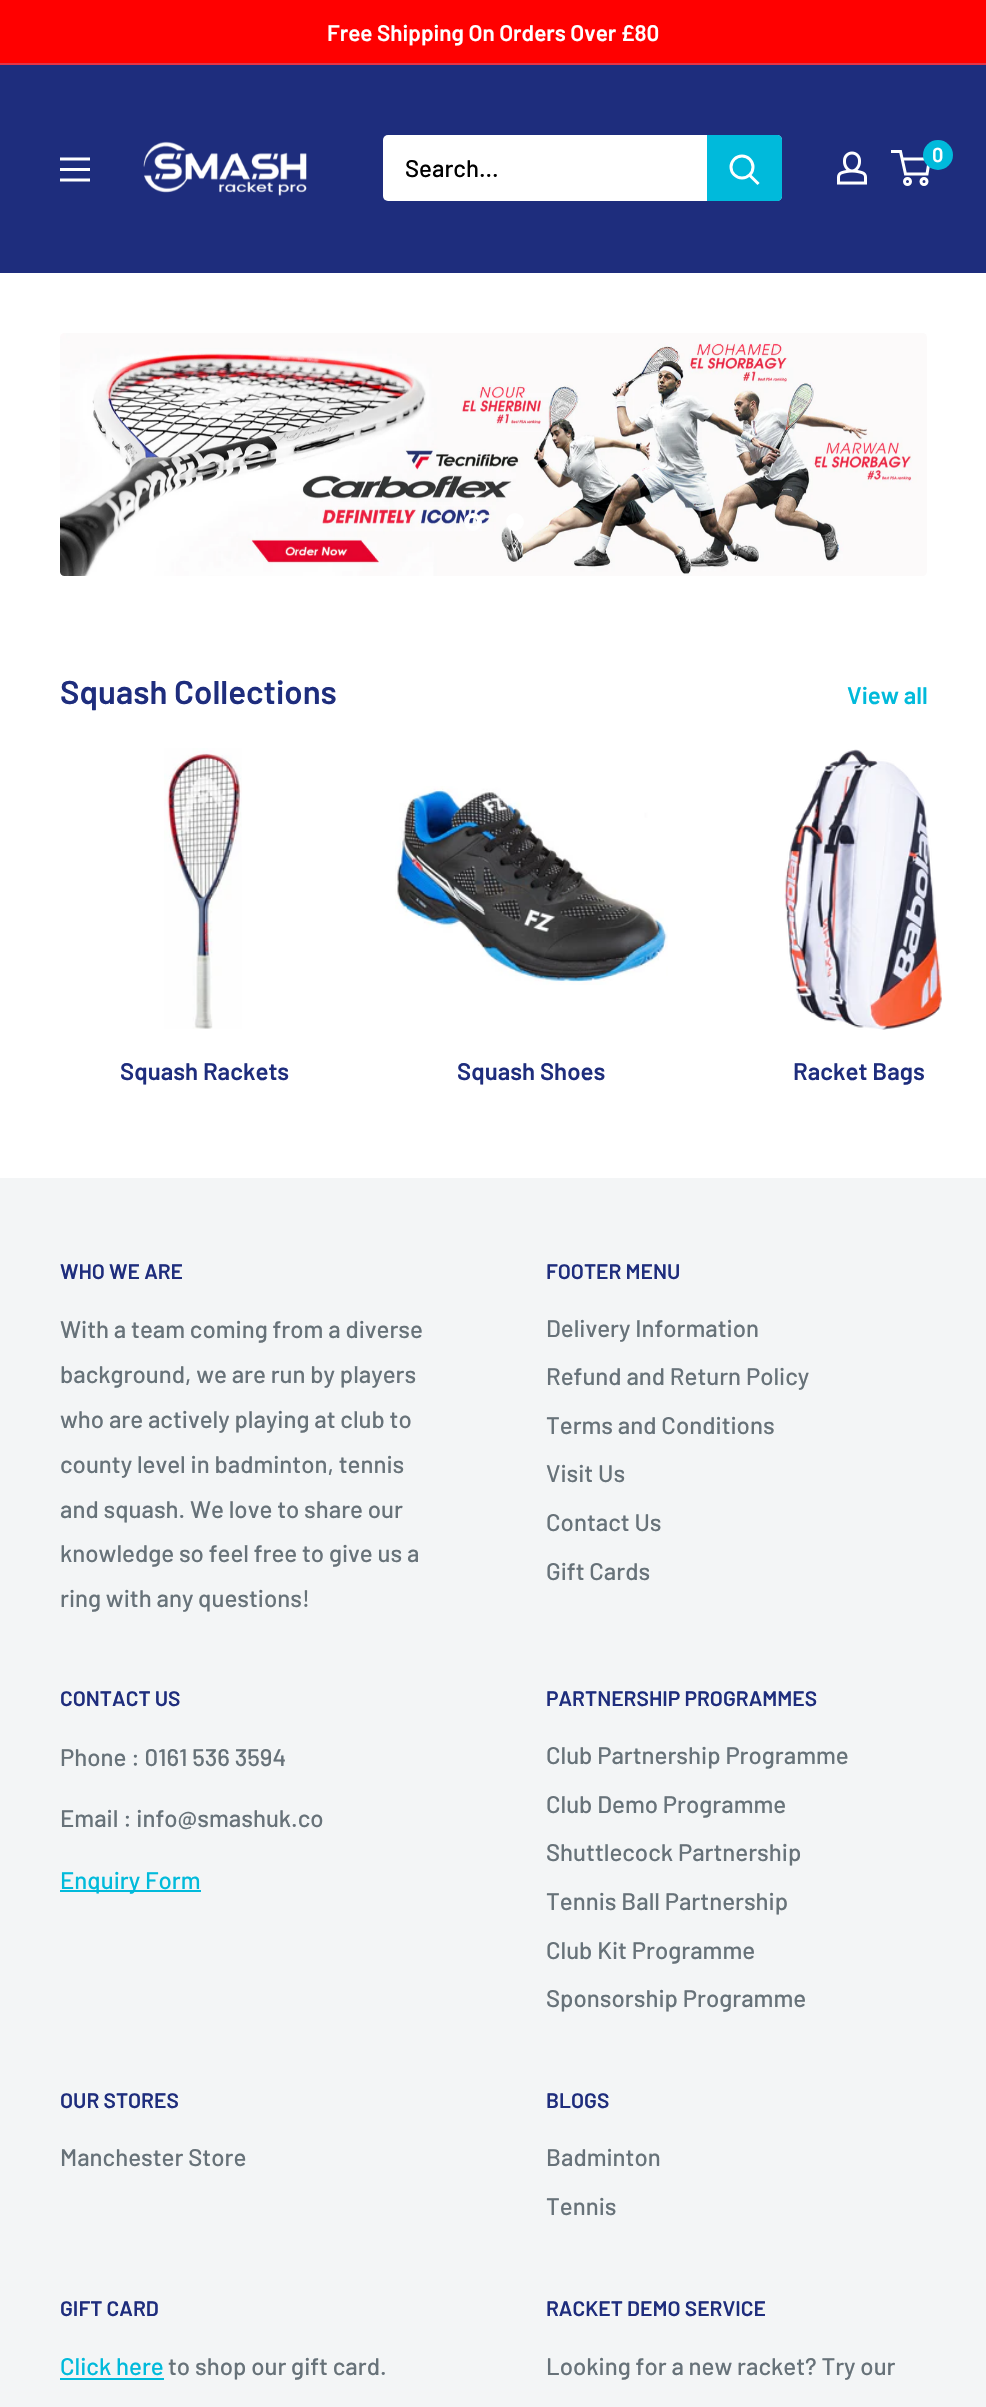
#include "include/core/SkBlurTypes.h"
#include "include/core/SkCanvas.h"
#include "include/core/SkData.h"
#include "include/core/SkFont.h"
#include "include/core/SkFontMgr.h"
#include "include/core/SkImage.h"
#include "include/core/SkMaskFilter.h"
#include "include/core/SkPaint.h"
#include "include/core/SkPathBuilder.h"
#include "include/core/SkTextBlob.h"
#include "include/effects/SkDashPathEffect.h"
#include "include/effects/SkGradientShader.h"
#include "include/utils/SkParsePath.h"

extern sk_sp<SkFontMgr> fontMgr;

void draw(SkCanvas* canvas) {
    SkPaint p;
    p.setAntiAlias(true);
    auto font = [&](const char* family, int weight, float size, bool italic = false) {
        SkFontStyle style(weight, SkFontStyle::kNormal_Width,
            italic ? SkFontStyle::kItalic_Slant : SkFontStyle::kUpright_Slant);
        SkFont result(fontMgr->matchFamilyStyle(family, style), size);
        result.setSubpixel(true);
        return result;
    };
    auto drawPhoto = [&](const char* path, float l, float t, float r, float b) {
        auto image = SkImages::DeferredFromEncodedData(SkData::MakeFromFileName(path));
        canvas->drawImageRect(image, SkRect::MakeLTRB(l, t, r, b), SkSamplingOptions());
    };
    canvas->clear(0xFFFFFFFF);
    p.setColor(0xFFFF0000);
    canvas->drawRect(SkRect::MakeLTRB(0, 0, 986, 63), p);
    p.setColor(0xFFE33548);
    canvas->drawRect(SkRect::MakeLTRB(0, 63, 986, 65), p);
    auto font1 = font("Barlow", 600, 22.5f);
    p.setColor(0xFFFFFFFF);
    canvas->drawString("Free Shipping On Orders Over £80", 327, 41, font1, p);
    p.setColor(0xFF1E2D7D);
    canvas->drawRect(SkRect::MakeLTRB(0, 65, 986, 273), p);
    drawPhoto("media/1.png", 143, 141, 307, 196);
    drawPhoto("media/2.png", 837, 151, 867, 185);
    p.setStyle(SkPaint::kStroke_Style);
    p.setStrokeWidth(3);
    p.setColor(0xFFFFFFFF);
    canvas->drawCircle(907.5f, 181.5f, 3, p);
    canvas->drawCircle(924, 181.5f, 3, p);
    canvas->drawPath(SkPathBuilder().moveTo(902, 159).lineTo(929.5f, 159).lineTo(927, 174).lineTo(905.5f, 174).lineTo(900.5f, 151.5f).lineTo(891, 151.5f).detach(), p);
    p.setStyle(SkPaint::kFill_Style);
    p.setColor(0xFF00BADB);
    canvas->drawCircle(938, 155, 15, p);
    auto font2 = font("Barlow", 600, 20);
    p.setColor(0xFFFFFFFF);
    canvas->drawString("0", 932, 162, font2, p);
    drawPhoto("media/3.png", 60, 157, 90, 182);
    canvas->drawRoundRect(SkRect::MakeLTRB(383, 135, 782, 201), 5, 5, p);
    auto font3 = font("Barlow", 500, 24);
    p.setColor(0xFF000000);
    canvas->drawString("Search...", 405, 177, font3, p);
    p.setColor(0xFF00BADB);
    canvas->drawPath(SkPathBuilder().moveTo(707, 135).lineTo(777, 135).cubicTo(780, 135, 782, 137, 782, 140).lineTo(782, 196).cubicTo(782, 199, 780, 201, 777, 201).lineTo(707, 201).close().detach(), p);
    p.setStyle(SkPaint::kStroke_Style);
    p.setStrokeCap(SkPaint::kSquare_Cap);
    p.setColor(0xFFFFFFFF);
    canvas->drawPath(SkPathBuilder().moveTo(757.5f, 183).lineTo(750, 175.5f).detach(), p);
    p.setStrokeCap(SkPaint::kButt_Cap);
    canvas->drawCircle(742, 167, 11, p);
    drawPhoto("media/4.png", 60, 333, 927, 576);
    p.setStrokeWidth(5);
    canvas->drawCircle(473, 522, 6.5f, p);
    p.setStyle(SkPaint::kFill_Style);
    canvas->drawCircle(515, 522, 6.5f, p);
    p.setStyle(SkPaint::kStroke_Style);
    canvas->drawCircle(515, 522, 6.5f, p);
    auto font4 = font("Barlow", 600, 33);
    p.setStyle(SkPaint::kFill_Style);
    p.setColor(0xFF1E2D7D);
    canvas->drawString("Squash Collections", 60, 704, font4, p);
    auto font5 = font("Barlow", 600, 24);
    p.setColor(0xFF00BADB);
    canvas->drawString("View all", 847, 704, font5, p);
    drawPhoto("media/5.png", 164, 748, 242, 1029);
    p.setColor(0xFF1E2D7D);
    canvas->drawString("Squash Rackets", 120, 1080, font5, p);
    drawPhoto("media/6.png", 395, 786, 668, 985);
    canvas->drawString("Squash Shoes", 457, 1080, font5, p);
    drawPhoto("media/7.png", 784, 749, 942, 1030);
    canvas->drawString("Racket Bags", 793, 1080, font5, p);
    p.setColor(0xFFF3F5F6);
    canvas->drawRect(SkRect::MakeLTRB(0, 1178, 986, 2407), p);
    auto font6 = font("Barlow", 600, 21);
    p.setColor(0xFF1E2D7D);
    canvas->drawString("WHO WE ARE", 60, 1279, font6, p);
    p.setColor(0xFF677279);
    {
        const struct { const char* s; float x, y; } items[] = {
            {"With a team coming from a diverse", 60, 1338},
            {"background, we are run by players", 60, 1383},
            {"who are actively playing at club to", 60, 1428},
            {"county level in badminton, tennis", 60, 1473},
            {"and squash. We love to share our", 60, 1518},
            {"knowledge so feel free to give us a", 60, 1562},
            {"ring with any questions!", 60, 1607},
        };
        for (auto [s, x, y] : items) {
            canvas->drawString(s, x, y, font3, p);
        }
    }
    p.setColor(0xFF1E2D7D);
    canvas->drawString("FOOTER MENU", 546, 1279, font6, p);
    p.setColor(0xFF677279);
    {
        const struct { const char* s; float x, y; } items[] = {
            {"Delivery Information", 546, 1337},
            {"Refund and Return Policy", 546, 1385},
            {"Terms and Conditions", 546, 1434},
            {"Visit Us", 546, 1482},
            {"Contact Us", 546, 1531},
            {"Gift Cards", 546, 1580},
        };
        for (auto [s, x, y] : items) {
            canvas->drawString(s, x, y, font3, p);
        }
    }
    p.setColor(0xFF1E2D7D);
    canvas->drawString("CONTACT US", 60, 1706, font6, p);
    p.setColor(0xFF677279);
    canvas->drawString("Phone : 0161 536 3594", 60, 1766, font3, p);
    canvas->drawString("Email : info@smashuk.co", 60, 1827, font3, p);
    p.setColor(0xFF00BADB);
    canvas->drawRect(SkRect::MakeLTRB(60, 1890, 201, 1892), p);
    canvas->drawString("Enquiry Form", 60, 1889, font3, p);
    p.setColor(0xFF1E2D7D);
    canvas->drawString("PARTNERSHIP PROGRAMMES", 546, 1706, font6, p);
    p.setColor(0xFF677279);
    {
        const struct { const char* s; float x, y; } items[] = {
            {"Club Partnership Programme", 546, 1764},
            {"Club Demo Programme", 546, 1813},
            {"Shuttlecock Partnership", 546, 1861},
            {"Tennis Ball Partnership", 546, 1910},
            {"Club Kit Programme", 546, 1959},
            {"Sponsorship Programme", 546, 2007},
        };
        for (auto [s, x, y] : items) {
            canvas->drawString(s, x, y, font3, p);
        }
    }
    p.setColor(0xFF1E2D7D);
    canvas->drawString("OUR STORES", 60, 2108, font6, p);
    p.setColor(0xFF677279);
    canvas->drawString("Manchester Store", 60, 2166, font3, p);
    p.setColor(0xFF1E2D7D);
    canvas->drawString("BLOGS", 546, 2108, font6, p);
    p.setColor(0xFF677279);
    canvas->drawString("Badminton", 546, 2166, font3, p);
    canvas->drawString("Tennis", 546, 2215, font3, p);
    p.setColor(0xFF1E2D7D);
    canvas->drawString("GIFT CARD", 60, 2316, font6, p);
    p.setColor(0xFF00BADB);
    canvas->drawString("Click here", 60, 2375, font3, p);
    canvas->drawRect(SkRect::MakeLTRB(60, 2378, 164, 2380), p);
    p.setColor(0xFF677279);
    canvas->drawString("to shop our gift card.", 168, 2375, font3, p);
    p.setColor(0xFF1E2D7D);
    canvas->drawString("RACKET DEMO SERVICE", 546, 2316, font6, p);
    p.setColor(0xFF677279);
    canvas->drawString("Looking for a new racket? Try our", 546, 2375, font3, p);
}
